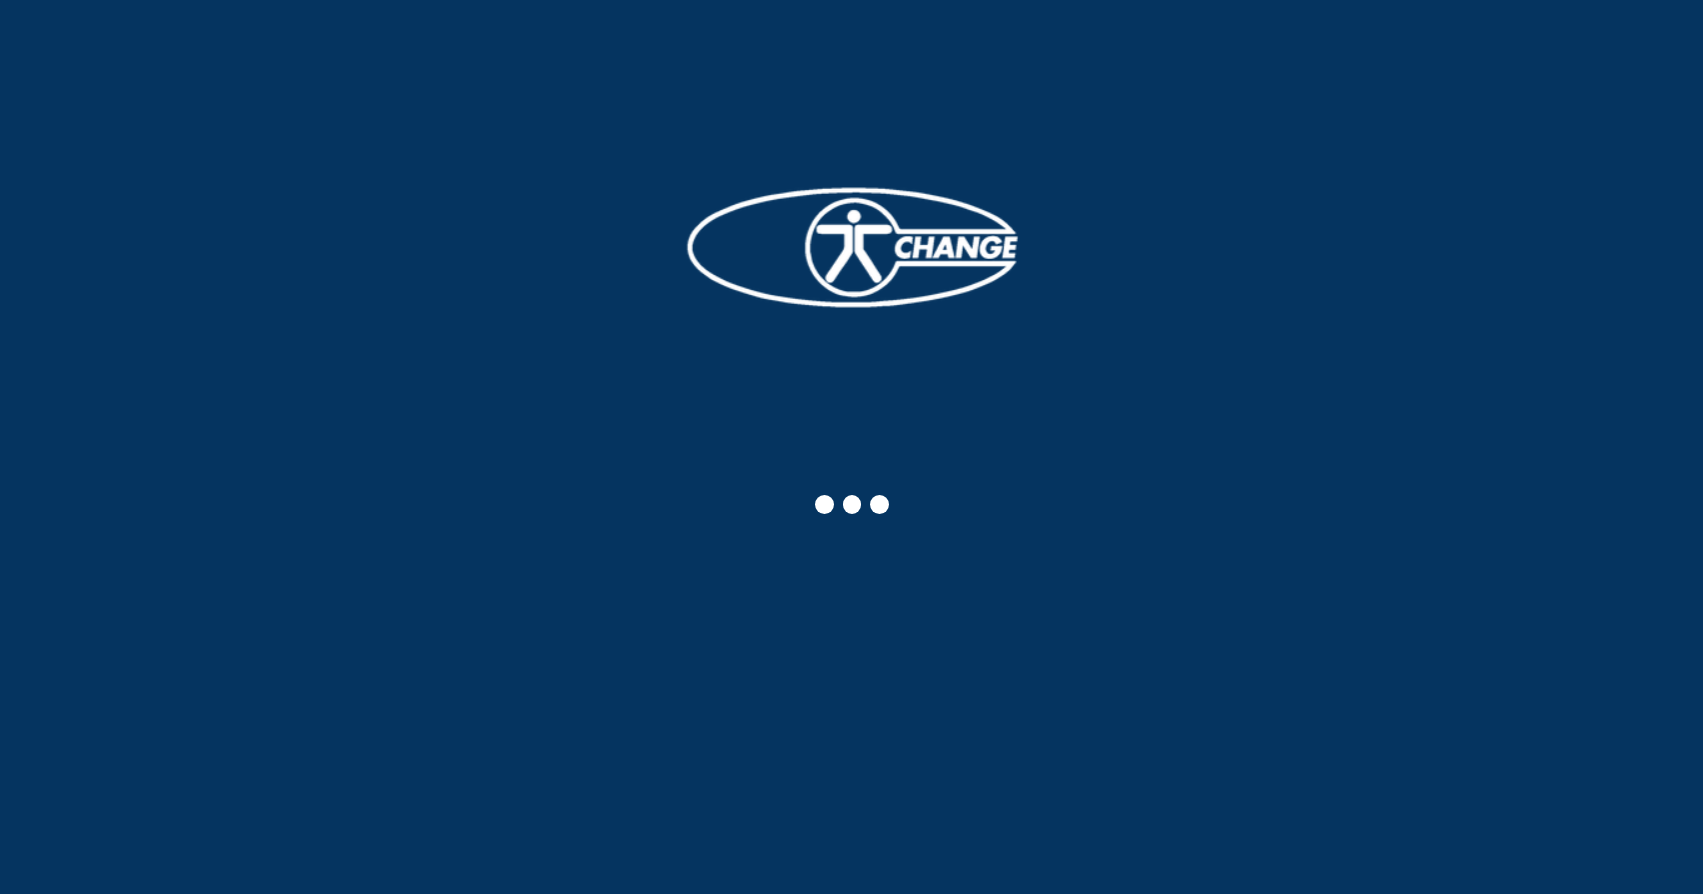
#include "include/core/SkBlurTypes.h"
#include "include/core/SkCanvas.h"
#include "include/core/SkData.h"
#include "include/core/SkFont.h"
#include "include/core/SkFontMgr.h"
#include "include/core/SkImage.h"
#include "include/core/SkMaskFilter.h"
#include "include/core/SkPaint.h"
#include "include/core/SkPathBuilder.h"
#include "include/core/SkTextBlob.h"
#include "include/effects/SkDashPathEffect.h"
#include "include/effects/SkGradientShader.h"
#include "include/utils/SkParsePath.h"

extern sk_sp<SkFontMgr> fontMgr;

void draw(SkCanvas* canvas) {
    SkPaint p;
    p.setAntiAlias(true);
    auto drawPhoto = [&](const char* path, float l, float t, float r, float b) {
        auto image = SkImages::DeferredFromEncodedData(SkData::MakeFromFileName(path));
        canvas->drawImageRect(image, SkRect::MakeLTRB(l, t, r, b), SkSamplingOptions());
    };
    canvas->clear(0xFF053460);
    drawPhoto("media/1.png", 686, 187, 1019, 308);
    p.setColor(0xFFFFFFFF);
    canvas->drawCircle(824.5f, 504.5f, 9.5f, p);
    canvas->drawRoundRect(SkRect::MakeLTRB(843, 495, 861, 514), 9, 9, p);
    canvas->drawCircle(879.5f, 504.5f, 9.5f, p);
}
